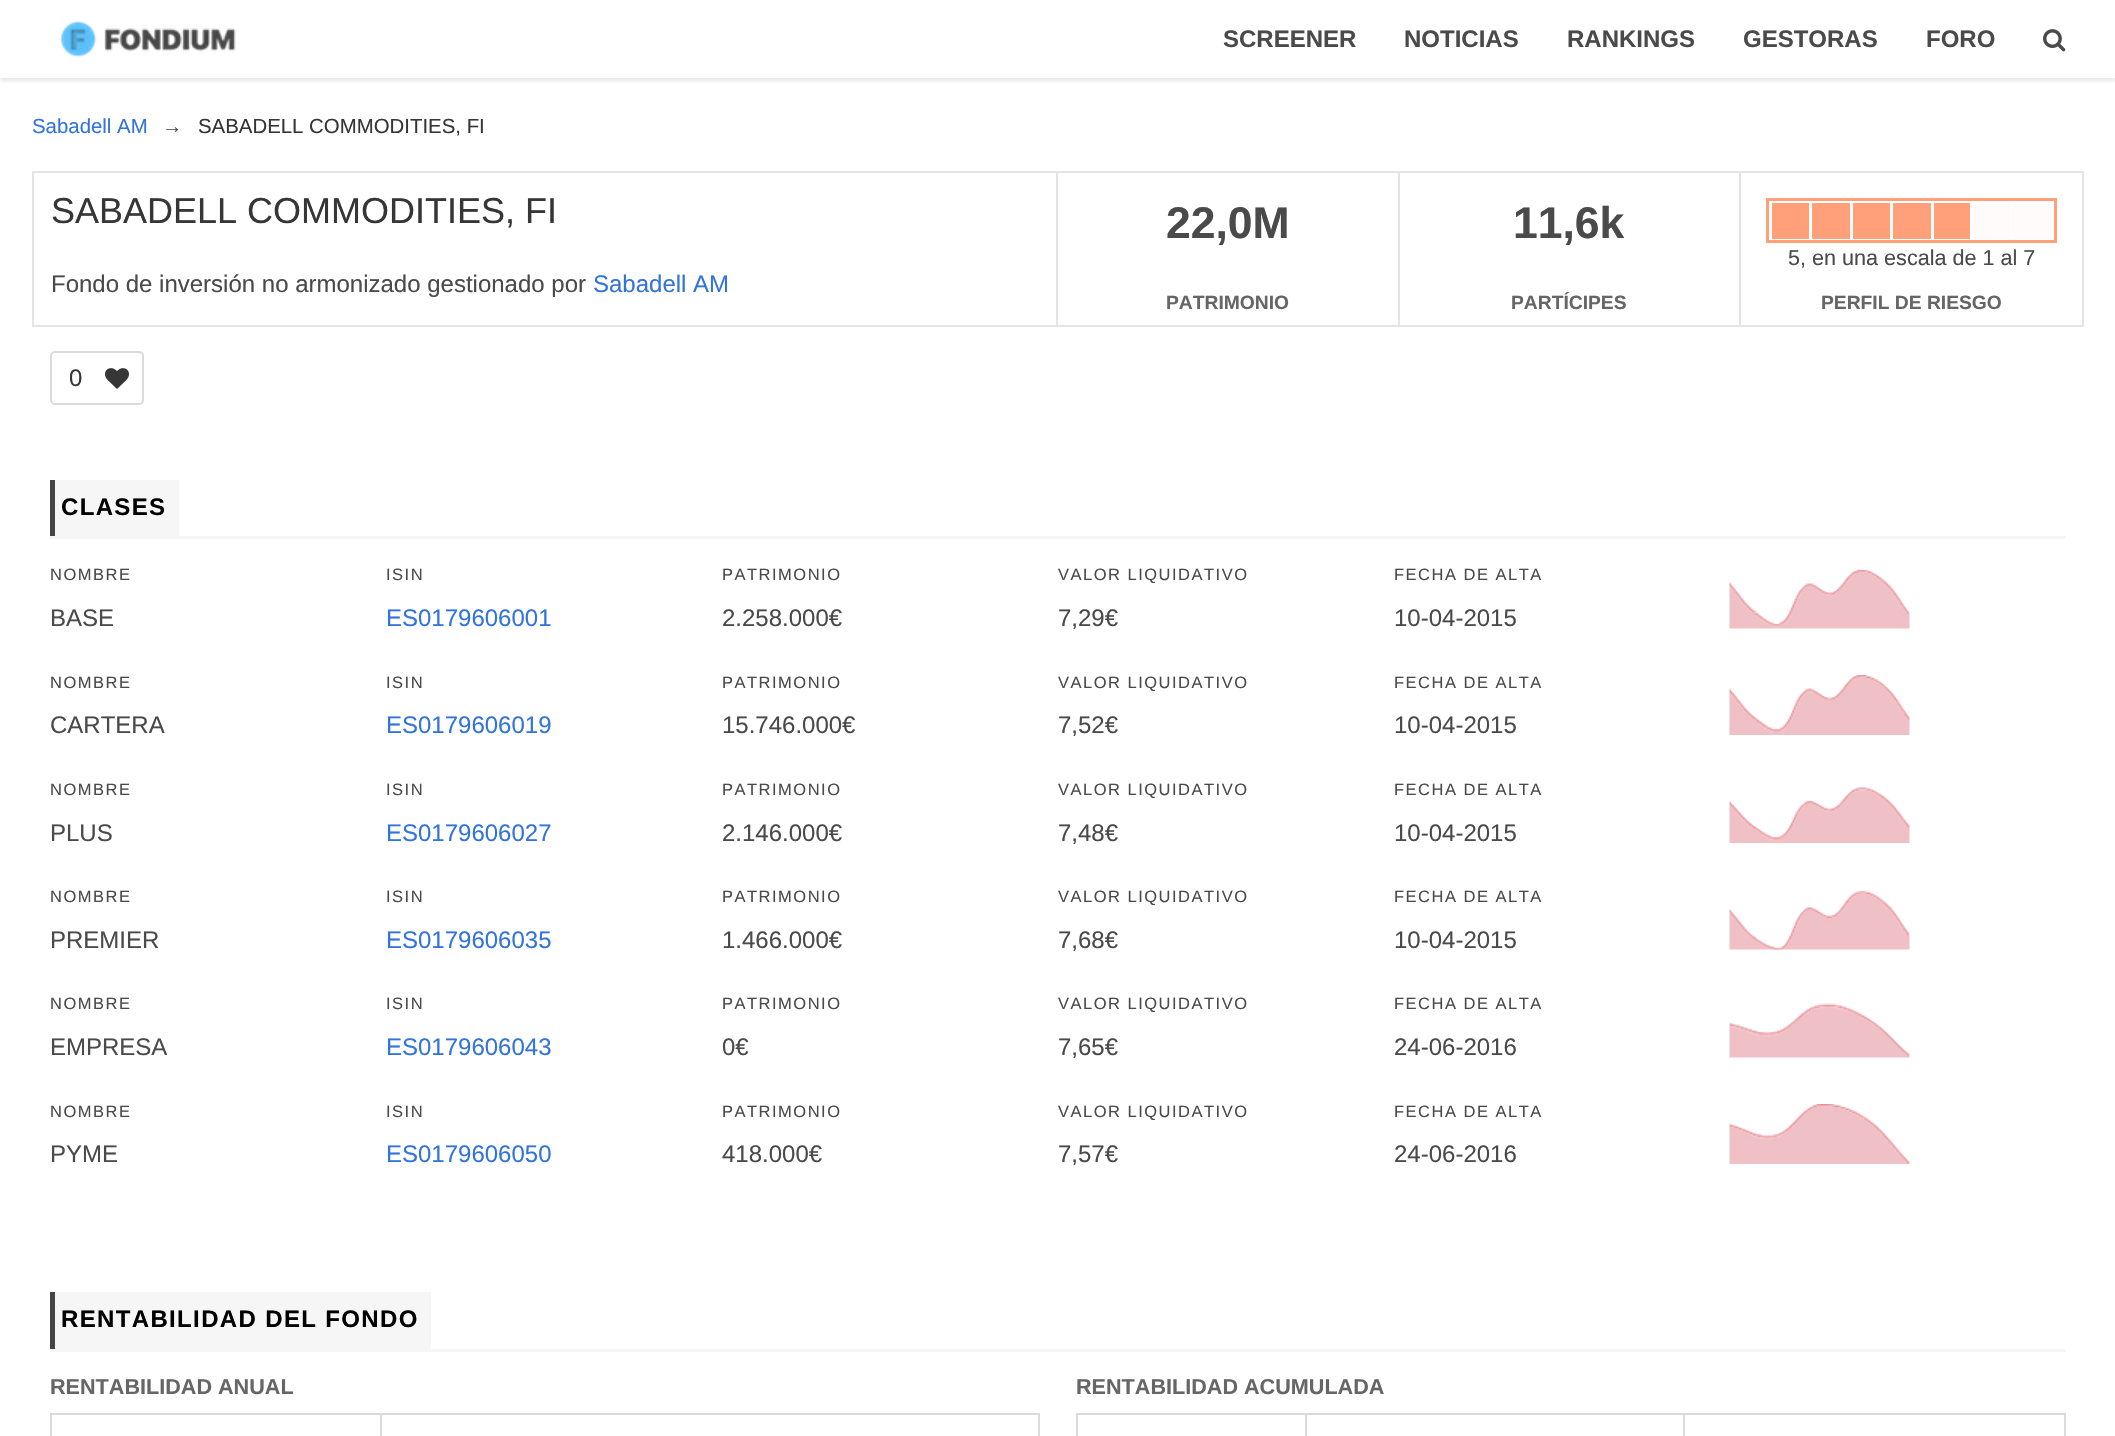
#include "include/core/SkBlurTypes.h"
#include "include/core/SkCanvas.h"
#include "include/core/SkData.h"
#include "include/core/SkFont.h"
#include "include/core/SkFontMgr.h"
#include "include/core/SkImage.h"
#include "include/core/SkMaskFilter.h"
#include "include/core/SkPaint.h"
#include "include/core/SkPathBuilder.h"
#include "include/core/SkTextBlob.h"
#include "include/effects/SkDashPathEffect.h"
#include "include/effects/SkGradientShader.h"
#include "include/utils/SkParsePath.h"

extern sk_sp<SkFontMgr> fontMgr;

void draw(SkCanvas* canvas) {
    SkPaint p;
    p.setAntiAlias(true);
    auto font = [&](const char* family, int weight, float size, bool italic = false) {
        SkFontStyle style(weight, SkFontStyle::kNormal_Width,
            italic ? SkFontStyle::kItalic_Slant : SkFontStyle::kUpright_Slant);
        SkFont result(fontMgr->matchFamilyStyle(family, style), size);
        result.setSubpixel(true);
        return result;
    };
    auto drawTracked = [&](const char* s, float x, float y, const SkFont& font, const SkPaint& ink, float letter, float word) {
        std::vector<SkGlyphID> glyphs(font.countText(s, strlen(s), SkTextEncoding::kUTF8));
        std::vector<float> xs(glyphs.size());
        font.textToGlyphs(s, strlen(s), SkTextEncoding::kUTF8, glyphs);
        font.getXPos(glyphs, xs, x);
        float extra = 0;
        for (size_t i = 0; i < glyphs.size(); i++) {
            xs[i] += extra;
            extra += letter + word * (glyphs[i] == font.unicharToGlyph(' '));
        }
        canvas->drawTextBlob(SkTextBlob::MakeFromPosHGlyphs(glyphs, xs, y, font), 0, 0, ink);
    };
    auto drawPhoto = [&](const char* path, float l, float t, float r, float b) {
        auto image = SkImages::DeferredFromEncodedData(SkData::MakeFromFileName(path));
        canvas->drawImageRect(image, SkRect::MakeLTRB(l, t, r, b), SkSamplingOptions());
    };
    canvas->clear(0xFFFFFFFF);
    canvas->save();
    canvas->clipRect(SkRect::MakeLTRB(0, 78, 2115, 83));
    p.setColor(0x1A0A0A0A);
    p.setMaskFilter(SkMaskFilter::MakeBlur(kNormal_SkBlurStyle, 2));
    canvas->drawRect(SkRect::MakeLTRB(0, 3, 2115, 81), p);
    p.setMaskFilter(nullptr);
    canvas->restore();
    drawPhoto("media/1.png", 60, 21, 236, 58);
    auto font1 = font("Liberation Sans", 700, 24);
    p.setColor(0xFF4A4A4A);
    {
        const struct { const char* s; float x, y; } items[] = {
            {"SCREENER", 1223, 47},
            {"NOTICIAS", 1404, 47},
            {"RANKINGS", 1567, 47},
            {"GESTORAS", 1743, 47},
            {"FORO", 1926, 47},
        };
        for (auto [s, x, y] : items) {
            canvas->drawString(s, x, y, font1, p);
        }
    }
    drawPhoto("media/2.png", 2043, 29, 2066, 52);
    auto font2 = font("Liberation Sans", 400, 20.4f);
    p.setColor(0xFF3273DC);
    canvas->drawString("Sabadell AM", 32, 133, font2, p);
    p.setColor(0xFF4A4A4A);
    canvas->drawString("→", 162, 133, font2, p);
    p.setColor(0xFF363636);
    canvas->drawString("SABADELL COMMODITIES, FI", 198, 133, font2, p);
    p.setStyle(SkPaint::kStroke_Style);
    p.setStrokeWidth(2);
    p.setColor(0xFFE4E4E4);
    canvas->drawRect(SkRect::MakeLTRB(33, 172, 2083, 326), p);
    p.setStyle(SkPaint::kFill_Style);
    canvas->drawRect(SkRect::MakeLTRB(1056, 173, 1058, 326), p);
    auto font3 = font("Liberation Sans", 400, 36);
    p.setColor(0xFF363636);
    canvas->drawString("SABADELL COMMODITIES, FI", 51, 223, font3, p);
    auto font4 = font("Liberation Sans", 400, 24);
    p.setColor(0xFF4A4A4A);
    canvas->drawString("Fondo de inversión no armonizado gestionado por", 51, 292, font4, p);
    p.setColor(0xFF3273DC);
    canvas->drawString("Sabadell AM", 593, 292, font4, p);
    p.setColor(0xFFE4E4E4);
    canvas->drawRect(SkRect::MakeLTRB(1398, 173, 1400, 326), p);
    auto font5 = font("Liberation Sans", 700, 44.5f);
    p.setColor(0xFF4A4A4A);
    canvas->drawString("22,0M", 1166, 238, font5, p);
    auto font6 = font("Liberation Sans", 700, 19.25f);
    p.setColor(0xFF666666);
    canvas->drawString("PATRIMONIO", 1166, 309, font6, p);
    p.setColor(0xFFE4E4E4);
    canvas->drawRect(SkRect::MakeLTRB(1739, 173, 1741, 326), p);
    p.setColor(0xFF4A4A4A);
    canvas->drawString("11,6k", 1513, 238, font5, p);
    p.setColor(0xFF666666);
    canvas->drawString("PARTÍCIPES", 1511, 309, font6, p);
    p.setStyle(SkPaint::kStroke_Style);
    p.setStrokeWidth(3);
    p.setColor(0xFFFFA07A);
    canvas->drawRect(SkRect::MakeLTRB(1767.5f, 199.5f, 2055.5f, 241.5f), p);
    p.setStyle(SkPaint::kFill_Style);
    {
        const struct { float l, t, r, b; SkColor color; } items[] = {
            {1772, 203, 1809, 239, 0xFFFFA07A},
            {1812, 203, 1850, 239, 0xFFFFA07A},
            {1853, 203, 1890, 239, 0xFFFFA07A},
            {1893, 203, 1931, 239, 0xFFFFA07A},
            {1934, 203, 1970, 239, 0xFFFFA07A},
            {1973, 203, 2010, 239, 0xFFFFFBFA},
            {2013, 203, 2051, 239, 0xFFFFFBFA},
        };
        for (auto [l, t, r, b, color] : items) {
            p.setColor(color);
            canvas->drawRect(SkRect::MakeLTRB(l, t, r, b), p);
        }
    }
    auto font7 = font("Liberation Sans", 400, 21.6f);
    p.setColor(0xFF4A4A4A);
    canvas->drawString("5, en una escala de 1 al 7", 1788, 265, font7, p);
    p.setColor(0xFF666666);
    canvas->drawString("PERFIL DE RIESGO", 1821, 309, font6, p);
    p.setStyle(SkPaint::kStroke_Style);
    p.setStrokeWidth(2);
    p.setColor(0xFFDBDBDB);
    canvas->drawRoundRect(SkRect::MakeLTRB(51, 352, 143, 404), 4, 4, p);
    p.setStyle(SkPaint::kFill_Style);
    p.setColor(0xFF363636);
    canvas->drawString("0", 69, 386, font4, p);
    drawPhoto("media/3.png", 105, 368, 129, 389);
    {
        const struct { float l, t, r, b; SkColor color; } items[] = {
            {50, 536, 2066, 539, 0xFFF6F6F6},
            {55, 480, 179, 536, 0xFFF6F6F6},
            {50, 480, 55, 536, 0xFF444444},
        };
        for (auto [l, t, r, b, color] : items) {
            p.setColor(color);
            canvas->drawRect(SkRect::MakeLTRB(l, t, r, b), p);
        }
    }
    p.setColor(0xFF000000);
    drawTracked("CLASES", 61, 515, font1, p, 1.35f, 0);
    auto font8 = font("Liberation Sans", 400, 16.5f);
    p.setColor(0xFF4A4A4A);
    drawTracked("NOMBRE", 50, 580, font8, p, 1.5f, 0);
    canvas->drawString("BASE", 50, 626, font4, p);
    drawTracked("ISIN", 386, 580, font8, p, 1.5f, 0);
    p.setColor(0xFF3273DC);
    canvas->drawString("ES0179606001", 386, 626, font4, p);
    p.setColor(0xFF4A4A4A);
    drawTracked("PATRIMONIO", 722, 580, font8, p, 1.5f, 0);
    canvas->drawString("2.258.000€", 722, 626, font4, p);
    drawTracked("VALOR LIQUIDATIVO", 1058, 580, font8, p, 1.5f, 0);
    canvas->drawString("7,29€", 1058, 626, font4, p);
    drawTracked("FECHA DE ALTA", 1394, 580, font8, p, 1.5f, 0);
    canvas->drawString("10-04-2015", 1394, 626, font4, p);
    drawPhoto("media/4.png", 1729, 569, 1910, 629);
    drawTracked("NOMBRE", 50, 688, font8, p, 1.5f, 0);
    canvas->drawString("CARTERA", 50, 733, font4, p);
    drawTracked("ISIN", 386, 688, font8, p, 1.5f, 0);
    p.setColor(0xFF3273DC);
    canvas->drawString("ES0179606019", 386, 733, font4, p);
    p.setColor(0xFF4A4A4A);
    drawTracked("PATRIMONIO", 722, 688, font8, p, 1.5f, 0);
    canvas->drawString("15.746.000€", 722, 733, font4, p);
    drawTracked("VALOR LIQUIDATIVO", 1058, 688, font8, p, 1.5f, 0);
    canvas->drawString("7,52€", 1058, 733, font4, p);
    drawTracked("FECHA DE ALTA", 1394, 688, font8, p, 1.5f, 0);
    canvas->drawString("10-04-2015", 1394, 733, font4, p);
    drawPhoto("media/5.png", 1729, 675, 1910, 735);
    drawTracked("NOMBRE", 50, 795, font8, p, 1.5f, 0);
    canvas->drawString("PLUS", 50, 841, font4, p);
    drawTracked("ISIN", 386, 795, font8, p, 1.5f, 0);
    p.setColor(0xFF3273DC);
    canvas->drawString("ES0179606027", 386, 841, font4, p);
    p.setColor(0xFF4A4A4A);
    drawTracked("PATRIMONIO", 722, 795, font8, p, 1.5f, 0);
    canvas->drawString("2.146.000€", 722, 841, font4, p);
    drawTracked("VALOR LIQUIDATIVO", 1058, 795, font8, p, 1.5f, 0);
    canvas->drawString("7,48€", 1058, 841, font4, p);
    drawTracked("FECHA DE ALTA", 1394, 795, font8, p, 1.5f, 0);
    canvas->drawString("10-04-2015", 1394, 841, font4, p);
    drawPhoto("media/6.png", 1729, 786, 1910, 843);
    drawTracked("NOMBRE", 50, 902, font8, p, 1.5f, 0);
    canvas->drawString("PREMIER", 50, 948, font4, p);
    drawTracked("ISIN", 386, 902, font8, p, 1.5f, 0);
    p.setColor(0xFF3273DC);
    canvas->drawString("ES0179606035", 386, 948, font4, p);
    p.setColor(0xFF4A4A4A);
    drawTracked("PATRIMONIO", 722, 902, font8, p, 1.5f, 0);
    canvas->drawString("1.466.000€", 722, 948, font4, p);
    drawTracked("VALOR LIQUIDATIVO", 1058, 902, font8, p, 1.5f, 0);
    canvas->drawString("7,68€", 1058, 948, font4, p);
    drawTracked("FECHA DE ALTA", 1394, 902, font8, p, 1.5f, 0);
    canvas->drawString("10-04-2015", 1394, 948, font4, p);
    drawPhoto("media/7.png", 1729, 890, 1910, 950);
    drawTracked("NOMBRE", 50, 1009, font8, p, 1.5f, 0);
    canvas->drawString("EMPRESA", 50, 1055, font4, p);
    drawTracked("ISIN", 386, 1009, font8, p, 1.5f, 0);
    p.setColor(0xFF3273DC);
    canvas->drawString("ES0179606043", 386, 1055, font4, p);
    p.setColor(0xFF4A4A4A);
    drawTracked("PATRIMONIO", 722, 1009, font8, p, 1.5f, 0);
    canvas->drawString("0€", 722, 1055, font4, p);
    drawTracked("VALOR LIQUIDATIVO", 1058, 1009, font8, p, 1.5f, 0);
    canvas->drawString("7,65€", 1058, 1055, font4, p);
    drawTracked("FECHA DE ALTA", 1394, 1009, font8, p, 1.5f, 0);
    canvas->drawString("24-06-2016", 1394, 1055, font4, p);
    drawPhoto("media/8.png", 1729, 1003, 1910, 1058);
    drawTracked("NOMBRE", 50, 1117, font8, p, 1.5f, 0);
    canvas->drawString("PYME", 50, 1162, font4, p);
    drawTracked("ISIN", 386, 1117, font8, p, 1.5f, 0);
    p.setColor(0xFF3273DC);
    canvas->drawString("ES0179606050", 386, 1162, font4, p);
    p.setColor(0xFF4A4A4A);
    drawTracked("PATRIMONIO", 722, 1117, font8, p, 1.5f, 0);
    canvas->drawString("418.000€", 722, 1162, font4, p);
    drawTracked("VALOR LIQUIDATIVO", 1058, 1117, font8, p, 1.5f, 0);
    canvas->drawString("7,57€", 1058, 1162, font4, p);
    drawTracked("FECHA DE ALTA", 1394, 1117, font8, p, 1.5f, 0);
    canvas->drawString("24-06-2016", 1394, 1162, font4, p);
    drawPhoto("media/9.png", 1729, 1104, 1910, 1164);
    {
        const struct { float l, t, r, b; SkColor color; } items[] = {
            {50, 1349, 2066, 1352, 0xFFF6F6F6},
            {55, 1292, 431, 1349, 0xFFF6F6F6},
            {50, 1292, 55, 1349, 0xFF444444},
        };
        for (auto [l, t, r, b, color] : items) {
            p.setColor(color);
            canvas->drawRect(SkRect::MakeLTRB(l, t, r, b), p);
        }
    }
    p.setColor(0xFF000000);
    drawTracked("RENTABILIDAD DEL FONDO", 61, 1327, font1, p, 1.35f, 0);
    auto font9 = font("Liberation Sans", 700, 21.6f);
    p.setColor(0xFF666666);
    canvas->drawString("RENTABILIDAD ANUAL", 50, 1394, font9, p);
    {
        const struct { float l, t, r, b; SkColor color; } items[] = {
            {380, 1413, 1040, 1415, 0xFFDBDBDB},
            {380, 1413, 382, 1436, 0xFFDBDBDB},
            {50, 1413, 381, 1415, 0xFFDBDBDB},
            {50, 1413, 52, 1436, 0xFFDBDBDB},
            {1038, 1413, 1040, 1436, 0xFFDBDBDB},
        };
        for (auto [l, t, r, b, color] : items) {
            p.setColor(color);
            canvas->drawRect(SkRect::MakeLTRB(l, t, r, b), p);
        }
    }
    p.setColor(0xFF666666);
    canvas->drawString("RENTABILIDAD ACUMULADA", 1076, 1394, font9, p);
    {
        const struct { float l, t, r, b; SkColor color; } items[] = {
            {1683, 1413, 2066, 1415, 0xFFDBDBDB},
            {1683, 1413, 1685, 1436, 0xFFDBDBDB},
            {1305, 1413, 1685, 1415, 0xFFDBDBDB},
            {1305, 1413, 1307, 1436, 0xFFDBDBDB},
            {1076, 1413, 1307, 1415, 0xFFDBDBDB},
            {1076, 1413, 1078, 1436, 0xFFDBDBDB},
            {2064, 1413, 2066, 1436, 0xFFDBDBDB},
        };
        for (auto [l, t, r, b, color] : items) {
            p.setColor(color);
            canvas->drawRect(SkRect::MakeLTRB(l, t, r, b), p);
        }
    }
}
